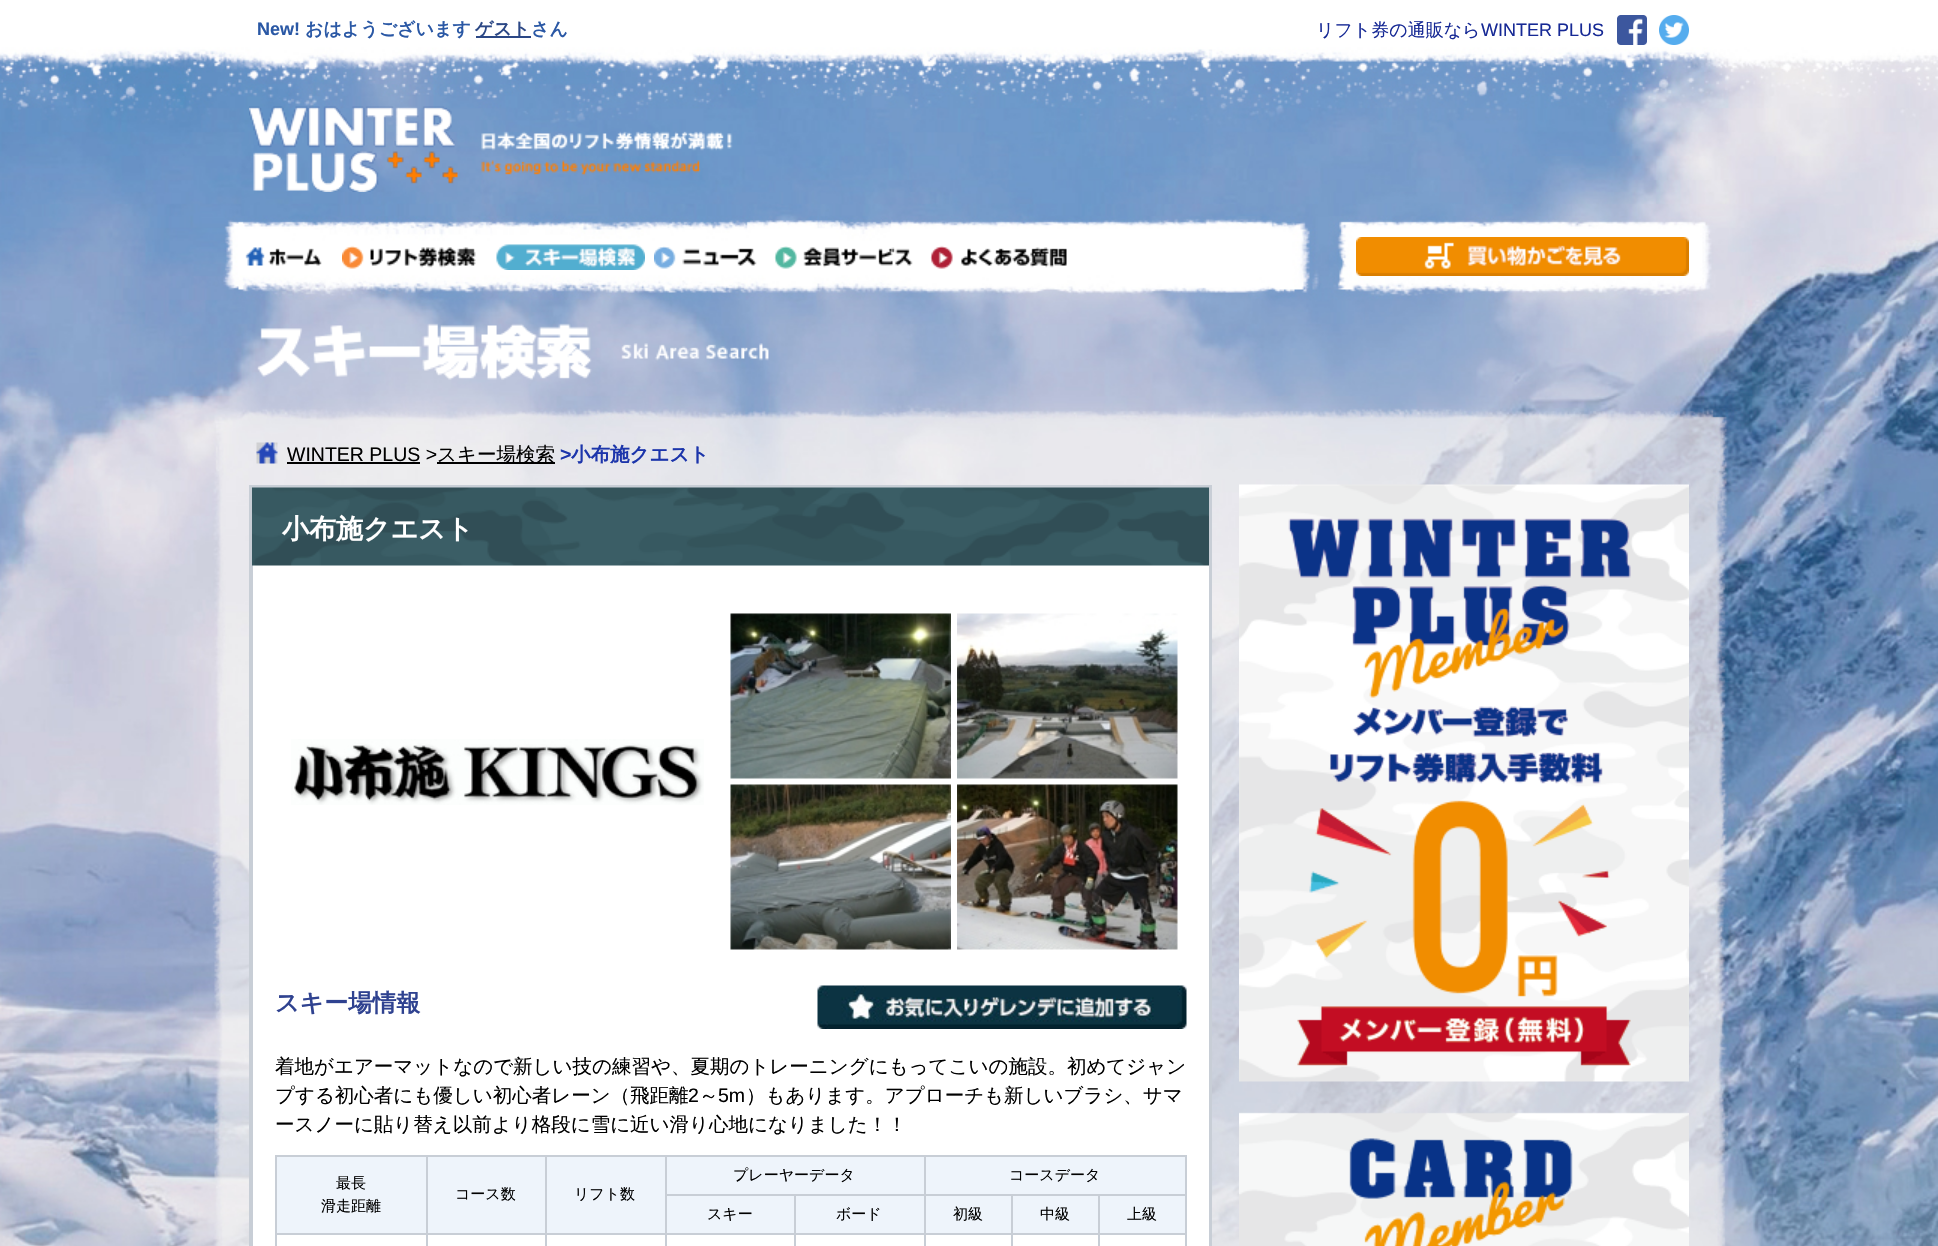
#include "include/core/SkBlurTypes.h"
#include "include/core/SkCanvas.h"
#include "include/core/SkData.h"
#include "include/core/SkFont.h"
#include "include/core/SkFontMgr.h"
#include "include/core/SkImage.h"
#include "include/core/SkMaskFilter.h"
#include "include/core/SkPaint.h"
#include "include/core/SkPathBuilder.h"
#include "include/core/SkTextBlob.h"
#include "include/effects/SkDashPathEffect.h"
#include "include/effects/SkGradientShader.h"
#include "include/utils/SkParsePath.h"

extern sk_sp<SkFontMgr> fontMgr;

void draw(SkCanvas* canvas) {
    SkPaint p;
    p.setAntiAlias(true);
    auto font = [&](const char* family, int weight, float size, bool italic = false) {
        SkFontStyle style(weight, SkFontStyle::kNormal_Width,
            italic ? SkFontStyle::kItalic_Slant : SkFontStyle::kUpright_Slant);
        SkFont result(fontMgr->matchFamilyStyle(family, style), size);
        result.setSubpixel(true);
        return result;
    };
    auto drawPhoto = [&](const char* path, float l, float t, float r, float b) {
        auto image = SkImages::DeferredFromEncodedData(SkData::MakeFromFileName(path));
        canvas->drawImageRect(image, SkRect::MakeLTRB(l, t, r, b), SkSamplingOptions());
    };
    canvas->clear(0xFFFFFFFF);
    drawPhoto("media/1.png", 0, 0, 1938, 1246);
    auto font1 = font("Liberation Sans", 700, 18);
    p.setColor(0xFF2A58A5);
    canvas->drawString("New!", 257, 35, font1, p);
    auto font2 = font("WenQuanYi Zen Hei", 700, 18);
    canvas->drawString("おはようございます", 305, 35, font2, p);
    p.setColor(0xFF2B4785);
    canvas->drawRect(SkRect::MakeLTRB(476, 36, 531, 38), p);
    canvas->drawString("ゲスト", 475, 35, font2, p);
    p.setColor(0xFF2A58A5);
    canvas->drawString("さん", 531, 35, font2, p);
    auto font3 = font("WenQuanYi Zen Hei", 500, 18);
    p.setColor(0xFF162995);
    canvas->drawString("リフト券の通販なら", 1316, 36, font3, p);
    auto font4 = font("Liberation Sans", 400, 18);
    canvas->drawString("WINTER PLUS", 1481, 36, font4, p);
    drawPhoto("media/2.png", 1617, 15, 1647, 45);
    drawPhoto("media/3.png", 1659, 15, 1689, 45);
    drawPhoto("media/4.png", 249, 106, 733, 192);
    drawPhoto("media/5.png", 245, 247, 322, 266);
    drawPhoto("media/6.png", 342, 245, 476, 269);
    drawPhoto("media/7.png", 496, 244, 645, 270);
    drawPhoto("media/8.png", 654, 246, 757, 269);
    drawPhoto("media/9.png", 774, 246, 913, 269);
    drawPhoto("media/10.png", 930, 245, 1067, 269);
    drawPhoto("media/11.png", 1356, 237, 1689, 276);
    drawPhoto("media/12.png", 257, 323, 769, 380);
    drawPhoto("media/13.png", 256, 442, 278, 464);
    auto font5 = font("Liberation Sans", 400, 19.5f);
    p.setColor(0xFF000000);
    canvas->drawString("WINTER PLUS >", 287, 461, font5, p);
    canvas->drawRect(SkRect::MakeLTRB(287, 462, 420, 464), p);
    canvas->drawRect(SkRect::MakeLTRB(437, 462, 555, 464), p);
    auto font6 = font("WenQuanYi Zen Hei", 500, 19.5f);
    canvas->drawString("スキー場検索", 437, 461, font6, p);
    auto font7 = font("Liberation Sans", 700, 19.5f);
    p.setColor(0xFF1C35AB);
    canvas->drawString(">", 560, 461, font7, p);
    auto font8 = font("WenQuanYi Zen Hei", 700, 19.5f);
    canvas->drawString("小布施クエスト", 571, 461, font8, p);
    p.setStyle(SkPaint::kStroke_Style);
    p.setStrokeWidth(2);
    p.setColor(0xFFC8CED6);
    canvas->drawRect(SkRect::MakeLTRB(250, 486, 1211, 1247), p);
    p.setStyle(SkPaint::kFill_Style);
    p.setColor(0xFFFFFFFF);
    canvas->drawRect(SkRect::MakeLTRB(253, 565, 1209, 1246), p);
    p.setStyle(SkPaint::kStroke_Style);
    p.setColor(0xFFC8CED6);
    canvas->drawRect(SkRect::MakeLTRB(252, 487, 1210, 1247), p);
    drawPhoto("media/14.png", 252, 487, 1209, 566);
    auto font9 = font("WenQuanYi Zen Hei", 700, 27);
    p.setStyle(SkPaint::kFill_Style);
    p.setColor(0xFFFFFFFF);
    canvas->drawString("小布施クエスト", 282, 538, font9, p);
    drawPhoto("media/15.png", 291, 739, 704, 805);
    drawPhoto("media/16.png", 730, 613, 951, 779);
    drawPhoto("media/17.png", 957, 613, 1178, 779);
    drawPhoto("media/18.png", 730, 784, 951, 950);
    drawPhoto("media/19.png", 957, 784, 1178, 950);
    auto font10 = font("WenQuanYi Zen Hei", 700, 24);
    p.setColor(0xFF2F4290);
    canvas->drawString("スキー場情報", 275, 1011, font10, p);
    drawPhoto("media/20.png", 817, 985, 1187, 1029);
    p.setColor(0xFF000000);
    canvas->drawString("着地がエアーマットなので新しい技の練習や、夏期のトレーニングにもってこいの施設。初めてジャン", 275, 1073, font6, p);
    canvas->drawString("プする初心者にも優しい初心者レーン（飛距離", 275, 1102, font6, p);
    canvas->drawString("2", 688, 1102, font5, p);
    canvas->drawString("～", 699, 1102, font6, p);
    canvas->drawString("5m", 718, 1102, font5, p);
    canvas->drawString("）もあります。アプローチも新しいブラシ、サマ", 746, 1102, font6, p);
    canvas->drawString("ースノーに貼り替え以前より格段に雪に近い滑り心地になりました！！", 275, 1131, font6, p);
    {
        const struct { float l, t, r, b; SkColor color; } items[] = {
            {277, 1157, 426, 1233, 0xFFEEF4FB},
            {924, 1155, 1187, 1157, 0xFFC8CED6},
            {1098, 1194, 1187, 1196, 0xFFC8CED6},
            {1098, 1233, 1187, 1235, 0xFFC8CED6},
            {1098, 1233, 1100, 1246, 0xFFC8CED6},
            {1011, 1233, 1100, 1235, 0xFFC8CED6},
            {1098, 1194, 1100, 1235, 0xFFC8CED6},
            {1011, 1194, 1100, 1196, 0xFFC8CED6},
            {1011, 1233, 1013, 1246, 0xFFC8CED6},
            {924, 1233, 1013, 1235, 0xFFC8CED6},
            {1011, 1194, 1013, 1235, 0xFFC8CED6},
            {924, 1194, 1013, 1196, 0xFFC8CED6},
            {924, 1233, 926, 1246, 0xFFC8CED6},
            {794, 1233, 926, 1235, 0xFFC8CED6},
            {924, 1194, 926, 1235, 0xFFC8CED6},
            {794, 1194, 926, 1196, 0xFFC8CED6},
            {924, 1155, 926, 1196, 0xFFC8CED6},
            {665, 1155, 926, 1157, 0xFFC8CED6},
            {794, 1233, 796, 1246, 0xFFC8CED6},
            {665, 1233, 795, 1235, 0xFFC8CED6},
            {794, 1194, 796, 1235, 0xFFC8CED6},
            {665, 1194, 795, 1196, 0xFFC8CED6},
            {665, 1233, 667, 1246, 0xFFC8CED6},
            {545, 1233, 666, 1235, 0xFFC8CED6},
            {665, 1194, 667, 1235, 0xFFC8CED6},
            {665, 1155, 667, 1196, 0xFFC8CED6},
            {545, 1155, 666, 1157, 0xFFC8CED6},
            {545, 1233, 547, 1246, 0xFFC8CED6},
            {426, 1233, 546, 1235, 0xFFC8CED6},
            {545, 1155, 547, 1235, 0xFFC8CED6},
            {426, 1155, 546, 1157, 0xFFC8CED6},
            {426, 1233, 428, 1246, 0xFFC8CED6},
            {275, 1233, 428, 1235, 0xFFC8CED6},
            {426, 1155, 428, 1235, 0xFFC8CED6},
            {275, 1155, 428, 1157, 0xFFC8CED6},
            {275, 1233, 277, 1246, 0xFFC8CED6},
            {275, 1155, 277, 1235, 0xFFC8CED6},
        };
        for (auto [l, t, r, b, color] : items) {
            p.setColor(color);
            canvas->drawRect(SkRect::MakeLTRB(l, t, r, b), p);
        }
    }
    auto font11 = font("WenQuanYi Zen Hei", 500, 15);
    p.setColor(0xFF000000);
    canvas->drawString("最長", 336, 1188, font11, p);
    canvas->drawString("滑走距離", 321, 1211, font11, p);
    p.setColor(0xFFEEF4FB);
    canvas->drawRect(SkRect::MakeLTRB(428, 1157, 545, 1233), p);
    p.setColor(0xFF000000);
    canvas->drawString("コース数", 455, 1199, font11, p);
    p.setColor(0xFFEEF4FB);
    canvas->drawRect(SkRect::MakeLTRB(547, 1157, 665, 1233), p);
    p.setColor(0xFF000000);
    canvas->drawString("リフト数", 574, 1199, font11, p);
    p.setColor(0xFFEEF4FB);
    canvas->drawRect(SkRect::MakeLTRB(667, 1157, 924, 1194), p);
    p.setColor(0xFF000000);
    canvas->drawString("プレーヤーデータ", 733, 1180, font11, p);
    {
        const struct { float l, t, r, b; SkColor color; } items[] = {
            {926, 1157, 1185, 1194, 0xFFEEF4FB},
            {1185, 1233, 1187, 1246, 0xFFC8CED6},
            {1185, 1194, 1187, 1235, 0xFFC8CED6},
            {1185, 1155, 1187, 1196, 0xFFC8CED6},
        };
        for (auto [l, t, r, b, color] : items) {
            p.setColor(color);
            canvas->drawRect(SkRect::MakeLTRB(l, t, r, b), p);
        }
    }
    p.setColor(0xFF000000);
    canvas->drawString("コースデータ", 1009, 1180, font11, p);
    p.setColor(0xFFEEF4FB);
    canvas->drawRect(SkRect::MakeLTRB(667, 1196, 794, 1233), p);
    p.setColor(0xFF000000);
    canvas->drawString("スキー", 707, 1219, font11, p);
    p.setColor(0xFFEEF4FB);
    canvas->drawRect(SkRect::MakeLTRB(796, 1196, 924, 1233), p);
    p.setColor(0xFF000000);
    canvas->drawString("ボード", 836, 1219, font11, p);
    p.setColor(0xFFEEF4FB);
    canvas->drawRect(SkRect::MakeLTRB(926, 1196, 1011, 1233), p);
    p.setColor(0xFF000000);
    canvas->drawString("初級", 953, 1219, font11, p);
    p.setColor(0xFFEEF4FB);
    canvas->drawRect(SkRect::MakeLTRB(1013, 1196, 1098, 1233), p);
    p.setColor(0xFF000000);
    canvas->drawString("中級", 1040, 1219, font11, p);
    p.setColor(0xFFEEF4FB);
    canvas->drawRect(SkRect::MakeLTRB(1100, 1196, 1185, 1233), p);
    p.setColor(0xFF000000);
    canvas->drawString("上級", 1127, 1219, font11, p);
    drawPhoto("media/21.png", 1239, 484, 1689, 1082);
    drawPhoto("media/22.png", 1239, 1112, 1689, 1246);
}
